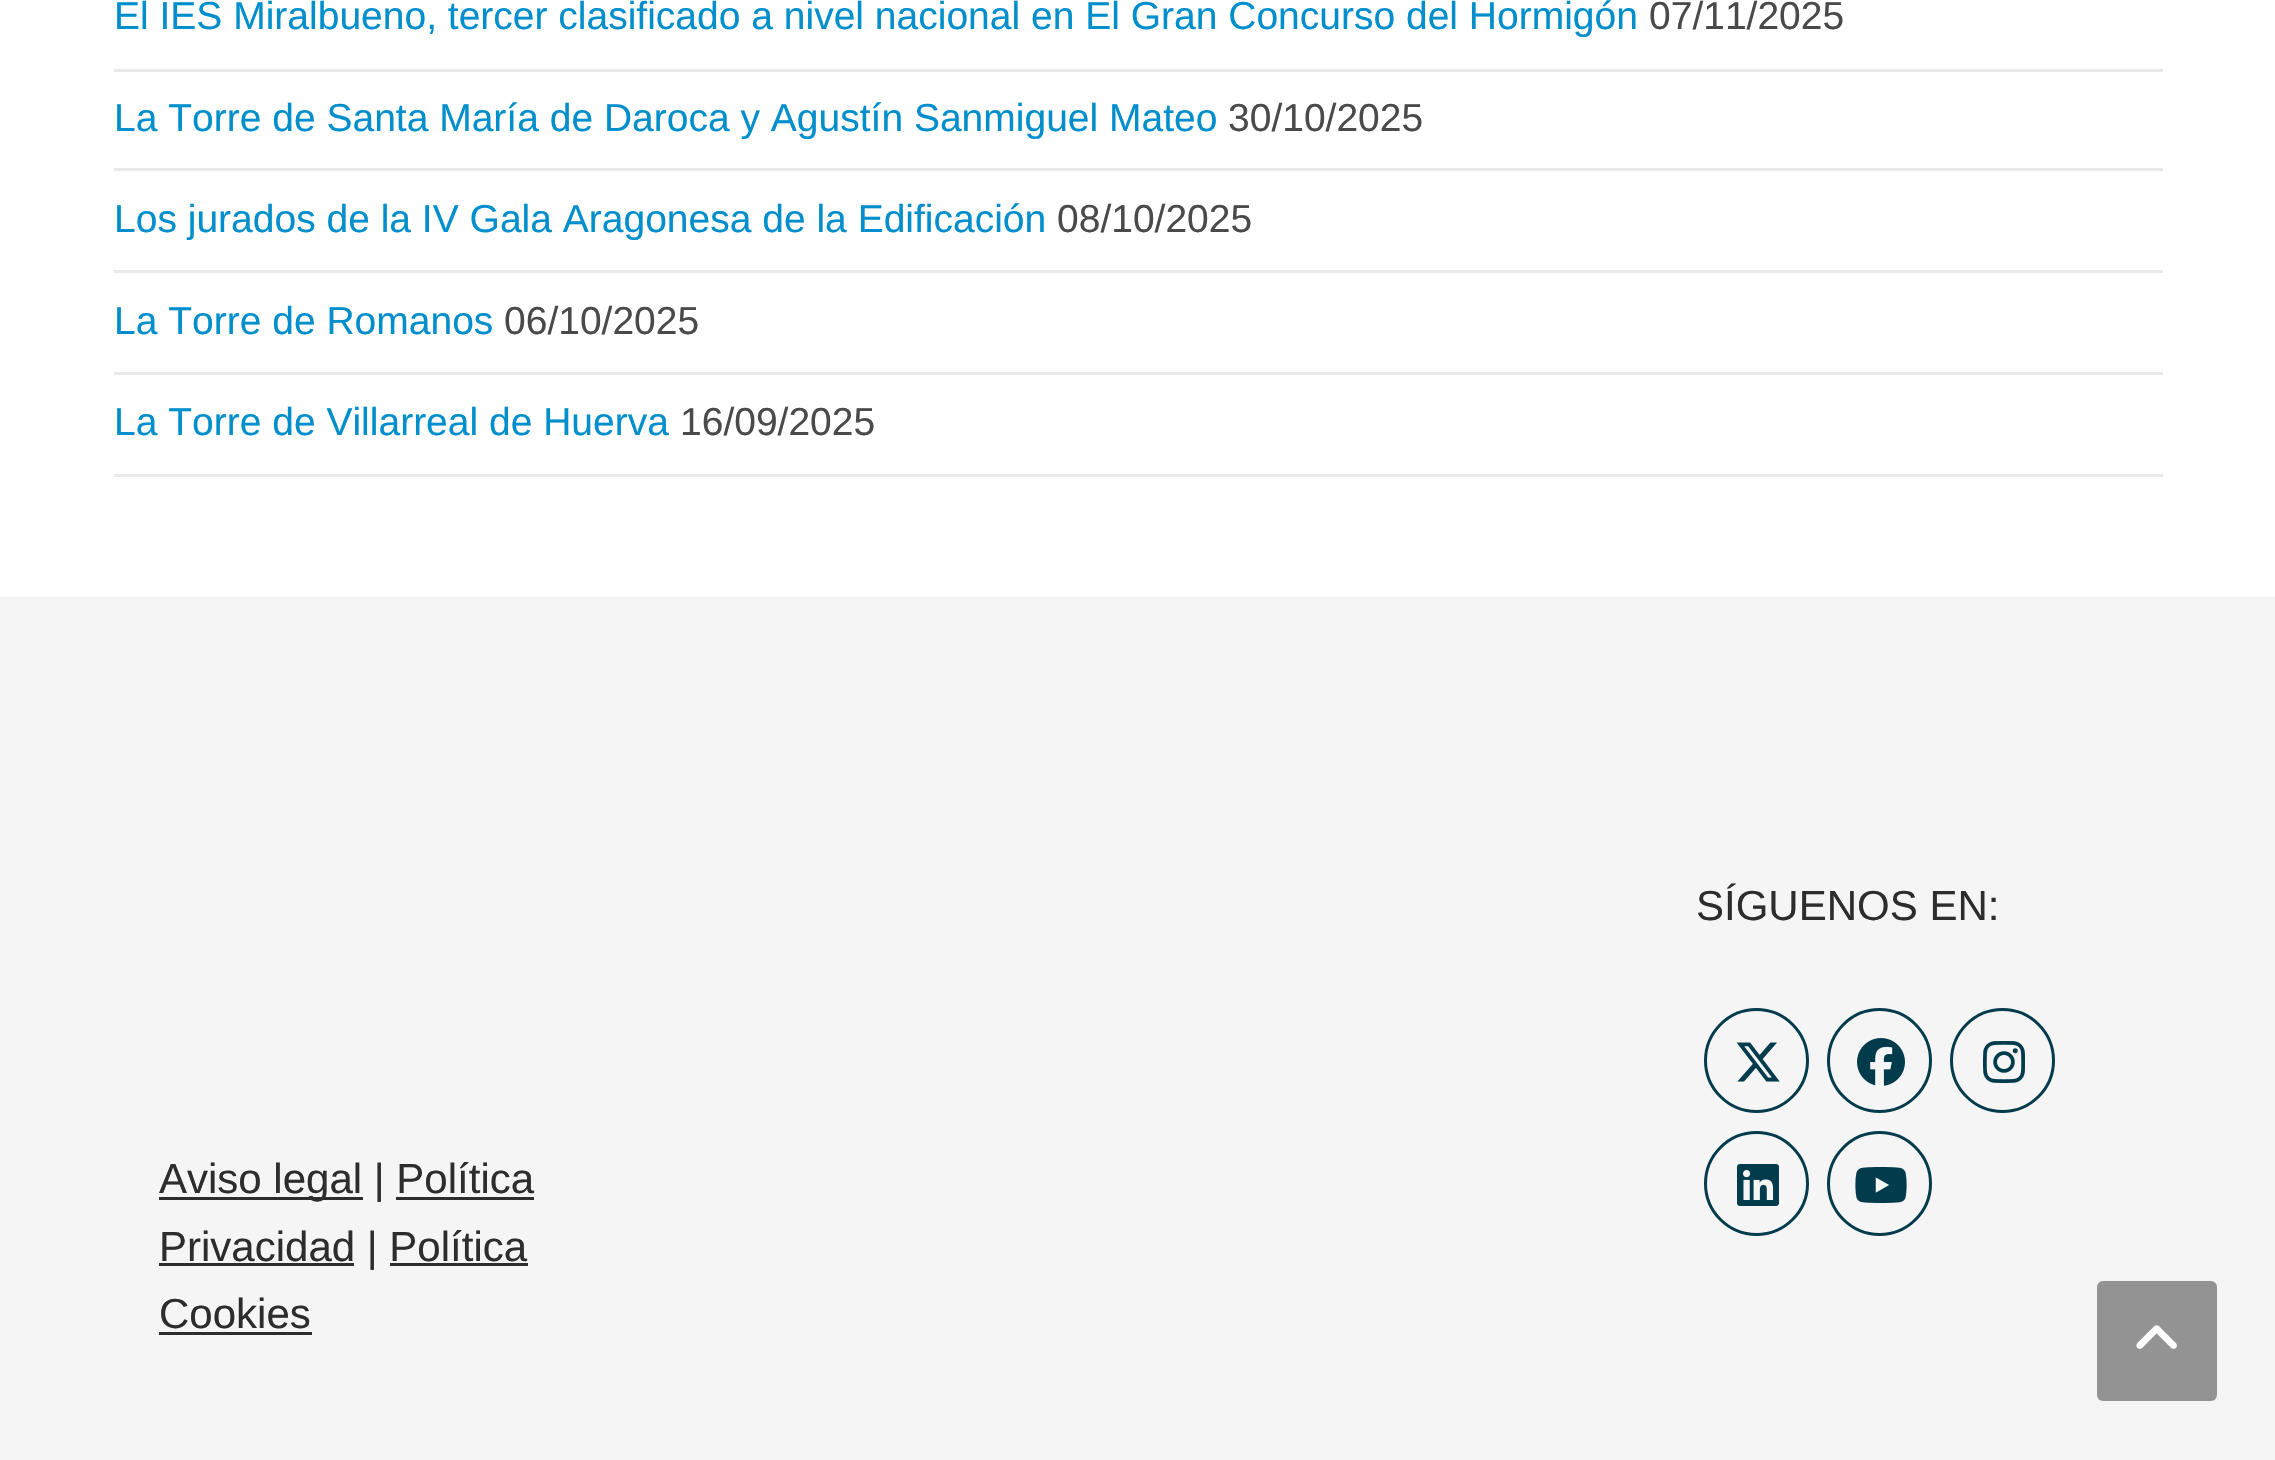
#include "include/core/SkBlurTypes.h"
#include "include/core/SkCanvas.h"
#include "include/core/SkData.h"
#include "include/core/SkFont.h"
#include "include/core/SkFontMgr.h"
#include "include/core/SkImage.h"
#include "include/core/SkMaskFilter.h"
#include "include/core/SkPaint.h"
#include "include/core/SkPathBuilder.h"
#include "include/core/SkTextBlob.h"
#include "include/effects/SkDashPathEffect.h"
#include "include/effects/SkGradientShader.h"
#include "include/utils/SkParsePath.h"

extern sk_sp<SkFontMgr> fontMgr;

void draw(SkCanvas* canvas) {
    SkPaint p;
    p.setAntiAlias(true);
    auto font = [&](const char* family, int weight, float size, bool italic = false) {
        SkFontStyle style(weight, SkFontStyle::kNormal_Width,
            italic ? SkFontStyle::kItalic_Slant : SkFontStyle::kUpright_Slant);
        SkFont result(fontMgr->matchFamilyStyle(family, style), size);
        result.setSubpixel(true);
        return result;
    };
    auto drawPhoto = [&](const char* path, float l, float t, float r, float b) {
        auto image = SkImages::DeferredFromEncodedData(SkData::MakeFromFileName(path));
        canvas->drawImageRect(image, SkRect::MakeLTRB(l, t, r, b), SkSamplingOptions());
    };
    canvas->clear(0xFFFFFFFF);
    p.setColor(0xFFE9E9E9);
    canvas->drawRect(SkRect::MakeLTRB(114, 69, 2163, 72), p);
    auto font1 = font("Liberation Sans", 400, 39);
    p.setColor(0xFF008FCC);
    canvas->drawString("El IES Miralbueno, tercer clasificado a nivel nacional en El Gran Concurso del Hormigón", 114, 29, font1, p);
    p.setColor(0xFF4A4A4A);
    canvas->drawString("07/11/2025", 1649, 29, font1, p);
    p.setColor(0xFFE9E9E9);
    canvas->drawRect(SkRect::MakeLTRB(114, 168, 2163, 171), p);
    p.setColor(0xFF008FCC);
    canvas->drawString("La Torre de Santa María de Daroca y Agustín Sanmiguel Mateo", 114, 131, font1, p);
    p.setColor(0xFF4A4A4A);
    canvas->drawString("30/10/2025", 1228, 131, font1, p);
    p.setColor(0xFFE9E9E9);
    canvas->drawRect(SkRect::MakeLTRB(114, 270, 2163, 273), p);
    p.setColor(0xFF008FCC);
    canvas->drawString("Los jurados de la IV Gala Aragonesa de la Edificación", 114, 232, font1, p);
    p.setColor(0xFF4A4A4A);
    canvas->drawString("08/10/2025", 1057, 232, font1, p);
    p.setColor(0xFFE9E9E9);
    canvas->drawRect(SkRect::MakeLTRB(114, 372, 2163, 375), p);
    p.setColor(0xFF008FCC);
    canvas->drawString("La Torre de Romanos", 114, 334, font1, p);
    p.setColor(0xFF4A4A4A);
    canvas->drawString("06/10/2025", 504, 334, font1, p);
    p.setColor(0xFFE9E9E9);
    canvas->drawRect(SkRect::MakeLTRB(114, 474, 2163, 477), p);
    p.setColor(0xFF008FCC);
    canvas->drawString("La Torre de Villarreal de Huerva", 114, 435, font1, p);
    p.setColor(0xFF4A4A4A);
    canvas->drawString("16/09/2025", 680, 435, font1, p);
    p.setColor(0xFFF5F5F5);
    canvas->drawRect(SkRect::MakeLTRB(0, 597, 2275, 1460), p);
    auto font2 = font("Liberation Sans", 400, 42);
    p.setColor(0xFF2D2D2D);
    canvas->drawString("SÍGUENOS EN:", 1696, 920, font2, p);
    p.setStyle(SkPaint::kStroke_Style);
    p.setStrokeWidth(3);
    p.setColor(0xFF013B4C);
    canvas->drawCircle(1756.5f, 1060.5f, 51, p);
    drawPhoto("media/1.png", 1736, 1042, 1780, 1082);
    canvas->drawCircle(1879.5f, 1060.5f, 51, p);
    drawPhoto("media/2.png", 1857, 1038, 1905, 1086);
    canvas->drawCircle(2002.5f, 1060.5f, 51, p);
    drawPhoto("media/3.png", 1983, 1041, 2025, 1083);
    canvas->drawCircle(1756.5f, 1183.5f, 51, p);
    drawPhoto("media/4.png", 1737, 1164, 1779, 1206);
    canvas->drawCircle(1879.5f, 1183.5f, 51, p);
    drawPhoto("media/5.png", 1855, 1167, 1907, 1203);
    p.setStyle(SkPaint::kFill_Style);
    p.setColor(0xFF2D2D2D);
    canvas->drawRect(SkRect::MakeLTRB(159, 1197, 363, 1200), p);
    canvas->drawString("Aviso legal | Política", 159, 1193, font2, p);
    canvas->drawRect(SkRect::MakeLTRB(159, 1263, 354, 1266), p);
    canvas->drawString("Privacidad | Política", 159, 1261, font2, p);
    canvas->drawRect(SkRect::MakeLTRB(396, 1197, 534, 1200), p);
    canvas->drawString("Cookies", 159, 1328, font2, p);
    canvas->drawRect(SkRect::MakeLTRB(390, 1263, 528, 1266), p);
    canvas->drawRect(SkRect::MakeLTRB(159, 1332, 312, 1335), p);
    p.setColor(0xFF939393);
    canvas->drawRoundRect(SkRect::MakeLTRB(2097, 1281, 2217, 1401), 6, 6, p);
    drawPhoto("media/6.png", 2136, 1325, 2177, 1349);
}
